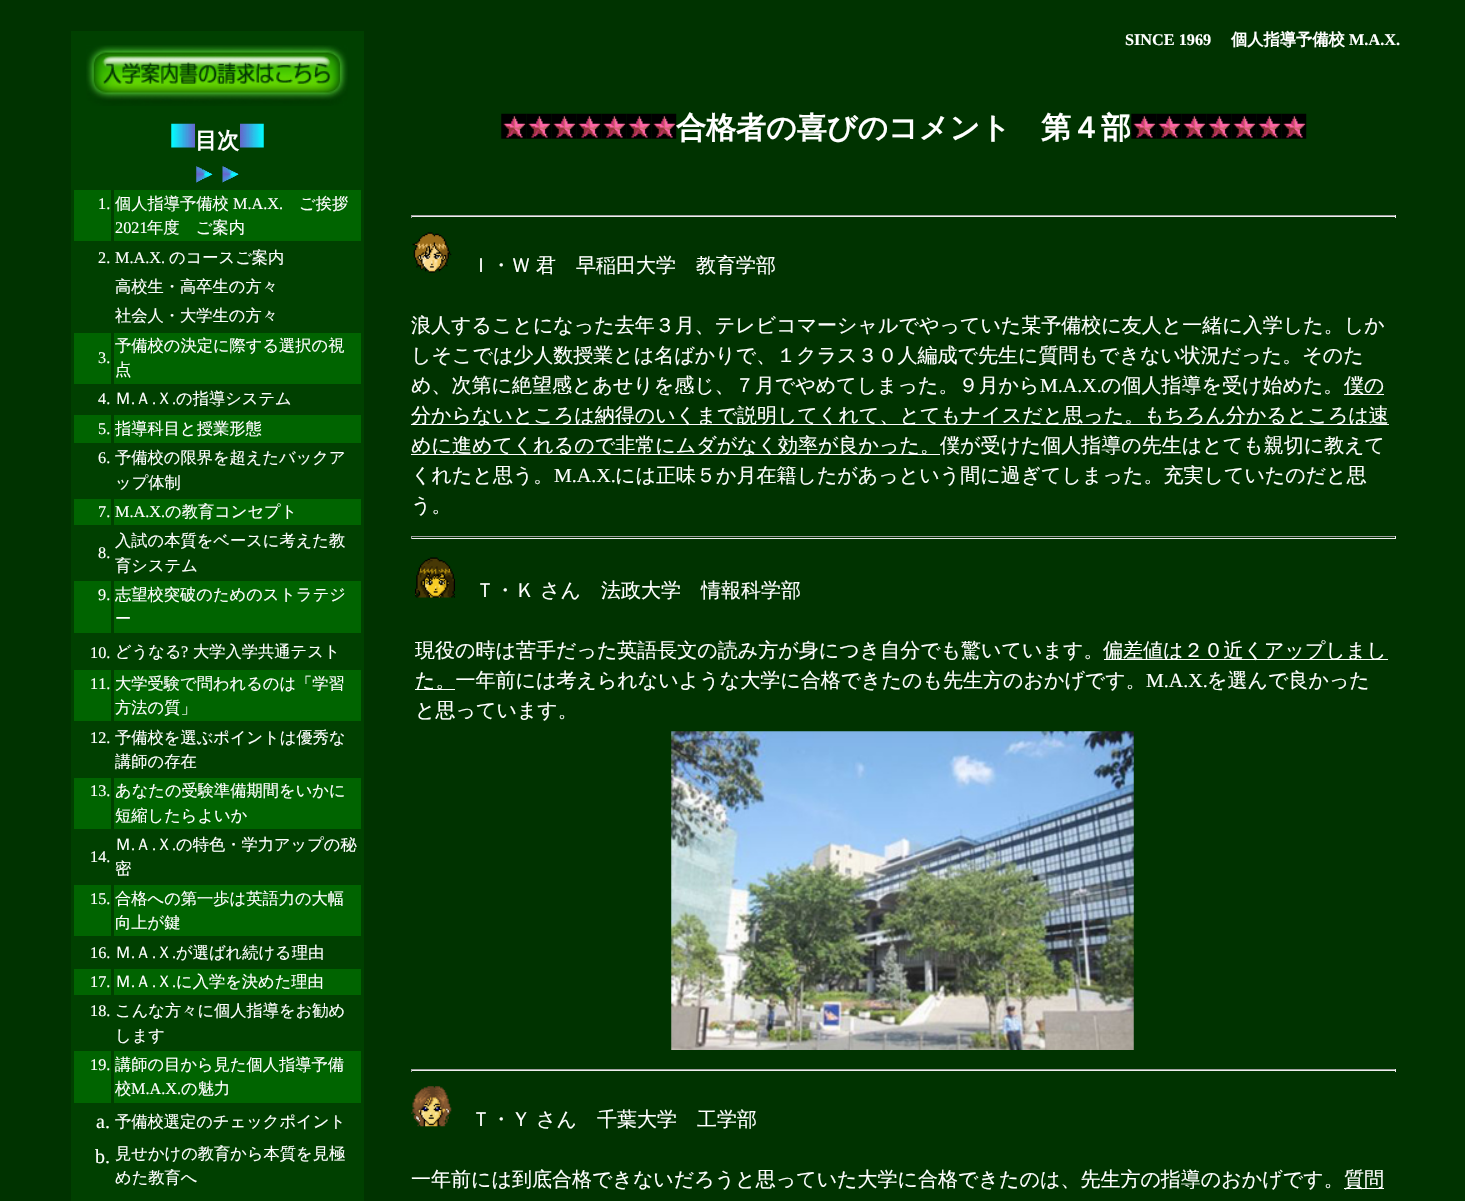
#include "include/core/SkBlurTypes.h"
#include "include/core/SkCanvas.h"
#include "include/core/SkData.h"
#include "include/core/SkFont.h"
#include "include/core/SkFontMgr.h"
#include "include/core/SkImage.h"
#include "include/core/SkMaskFilter.h"
#include "include/core/SkPaint.h"
#include "include/core/SkPathBuilder.h"
#include "include/core/SkTextBlob.h"
#include "include/effects/SkDashPathEffect.h"
#include "include/effects/SkGradientShader.h"
#include "include/utils/SkParsePath.h"

extern sk_sp<SkFontMgr> fontMgr;

void draw(SkCanvas* canvas) {
    SkPaint p;
    p.setAntiAlias(true);
    auto font = [&](const char* family, int weight, float size, bool italic = false) {
        SkFontStyle style(weight, SkFontStyle::kNormal_Width,
            italic ? SkFontStyle::kItalic_Slant : SkFontStyle::kUpright_Slant);
        SkFont result(fontMgr->matchFamilyStyle(family, style), size);
        result.setSubpixel(true);
        return result;
    };
    auto drawTracked = [&](const char* s, float x, float y, const SkFont& font, const SkPaint& ink, float letter, float word) {
        std::vector<SkGlyphID> glyphs(font.countText(s, strlen(s), SkTextEncoding::kUTF8));
        std::vector<float> xs(glyphs.size());
        font.textToGlyphs(s, strlen(s), SkTextEncoding::kUTF8, glyphs);
        font.getXPos(glyphs, xs, x);
        float extra = 0;
        for (size_t i = 0; i < glyphs.size(); i++) {
            xs[i] += extra;
            extra += letter + word * (glyphs[i] == font.unicharToGlyph(' '));
        }
        canvas->drawTextBlob(SkTextBlob::MakeFromPosHGlyphs(glyphs, xs, y, font), 0, 0, ink);
    };
    auto drawPhoto = [&](const char* path, float l, float t, float r, float b) {
        auto image = SkImages::DeferredFromEncodedData(SkData::MakeFromFileName(path));
        canvas->drawImageRect(image, SkRect::MakeLTRB(l, t, r, b), SkSamplingOptions());
    };
    canvas->clear(0xFF003300);
    p.setColor(0xFF004000);
    canvas->drawRect(SkRect::MakeLTRB(71, 31, 364, 1201), p);
    drawPhoto("media/1.png", 86, 45, 348, 106);
    drawPhoto("media/2.png", 171, 123, 195, 148);
    auto font1 = font("WenQuanYi Zen Hei", 700, 22);
    p.setColor(0xFFFFFFFF);
    canvas->drawString("目次", 195, 148, font1, p);
    drawPhoto("media/3.png", 240, 123, 264, 148);
    drawPhoto("media/4.png", 196, 166, 213, 183);
    drawPhoto("media/5.png", 222, 166, 239, 183);
    p.setColor(0xFF006400);
    canvas->drawRect(SkRect::MakeLTRB(74, 190, 111, 241), p);
    auto font2 = font("Liberation Serif", 400, 16.25f);
    p.setColor(0xFFFFFFFF);
    canvas->drawString("1.", 98, 209, font2, p);
    p.setColor(0xFF006400);
    canvas->drawRect(SkRect::MakeLTRB(114, 190, 361, 241), p);
    auto font3 = font("WenQuanYi Zen Hei", 500, 16.25f);
    p.setColor(0xFFFFFFFF);
    canvas->drawString("個人指導予備校", 115, 209, font3, p);
    canvas->drawString("M.A.X.", 233, 209, font2, p);
    canvas->drawString("ご挨拶", 299, 209, font3, p);
    canvas->drawString("2021", 115, 233, font2, p);
    canvas->drawString("年度　ご案内", 147, 233, font3, p);
    canvas->drawString("2.", 98, 263, font2, p);
    canvas->drawString("M.A.X.", 115, 263, font2, p);
    {
        const struct { const char* s; float x, y; } items[] = {
            {"のコースご案内", 169, 263},
            {"高校生・高卒生の方々", 115, 292},
            {"社会人・大学生の方々", 115, 321},
        };
        for (auto [s, x, y] : items) {
            canvas->drawString(s, x, y, font3, p);
        }
    }
    p.setColor(0xFF006400);
    canvas->drawRect(SkRect::MakeLTRB(74, 333, 111, 384), p);
    p.setColor(0xFFFFFFFF);
    canvas->drawString("3.", 98, 363, font2, p);
    p.setColor(0xFF006400);
    canvas->drawRect(SkRect::MakeLTRB(114, 333, 361, 384), p);
    p.setColor(0xFFFFFFFF);
    canvas->drawString("予備校の決定に際する選択の視", 115, 351, font3, p);
    canvas->drawString("点", 115, 375, font3, p);
    canvas->drawString("4.", 98, 404, font2, p);
    canvas->drawString("Ｍ", 115, 404, font3, p);
    canvas->drawString(".", 131, 404, font2, p);
    canvas->drawString("Ａ", 135, 404, font3, p);
    canvas->drawString(".", 152, 404, font2, p);
    canvas->drawString("Ｘ", 156, 404, font3, p);
    canvas->drawString(".", 172, 404, font2, p);
    canvas->drawString("の指導システム", 176, 404, font3, p);
    p.setColor(0xFF006400);
    canvas->drawRect(SkRect::MakeLTRB(74, 415, 111, 443), p);
    p.setColor(0xFFFFFFFF);
    canvas->drawString("5.", 98, 434, font2, p);
    p.setColor(0xFF006400);
    canvas->drawRect(SkRect::MakeLTRB(114, 415, 361, 443), p);
    p.setColor(0xFFFFFFFF);
    canvas->drawString("指導科目と授業形態", 115, 434, font3, p);
    canvas->drawString("6.", 98, 463, font2, p);
    canvas->drawString("予備校の限界を超えたバックア", 115, 463, font3, p);
    canvas->drawString("ップ体制", 115, 488, font3, p);
    p.setColor(0xFF006400);
    canvas->drawRect(SkRect::MakeLTRB(74, 499, 111, 525), p);
    p.setColor(0xFFFFFFFF);
    canvas->drawString("7.", 98, 517, font2, p);
    p.setColor(0xFF006400);
    canvas->drawRect(SkRect::MakeLTRB(114, 499, 361, 525), p);
    p.setColor(0xFFFFFFFF);
    canvas->drawString("M.A.X.", 115, 517, font2, p);
    canvas->drawString("の教育コンセプト", 165, 517, font3, p);
    canvas->drawString("8.", 98, 558, font2, p);
    canvas->drawString("入試の本質をベースに考えた教", 115, 546, font3, p);
    canvas->drawString("育システム", 115, 571, font3, p);
    p.setColor(0xFF006400);
    canvas->drawRect(SkRect::MakeLTRB(74, 581, 111, 633), p);
    p.setColor(0xFFFFFFFF);
    canvas->drawString("9.", 98, 600, font2, p);
    p.setColor(0xFF006400);
    canvas->drawRect(SkRect::MakeLTRB(114, 581, 361, 633), p);
    p.setColor(0xFFFFFFFF);
    canvas->drawString("志望校突破のためのストラテジ", 115, 600, font3, p);
    canvas->drawString("ー", 115, 624, font3, p);
    canvas->drawString("10.", 90, 658, font2, p);
    canvas->drawString("どうなる", 115, 657, font3, p);
    canvas->drawString("?", 181, 657, font2, p);
    canvas->drawString("大学入学共通テスト", 193, 657, font3, p);
    p.setColor(0xFF006400);
    canvas->drawRect(SkRect::MakeLTRB(74, 670, 111, 721), p);
    p.setColor(0xFFFFFFFF);
    canvas->drawString("11.", 90, 689, font2, p);
    p.setColor(0xFF006400);
    canvas->drawRect(SkRect::MakeLTRB(114, 670, 361, 721), p);
    p.setColor(0xFFFFFFFF);
    canvas->drawString("大学受験で問われるのは「学習", 115, 689, font3, p);
    canvas->drawString("方法の質」", 115, 713, font3, p);
    canvas->drawString("12.", 90, 743, font2, p);
    canvas->drawString("予備校を選ぶポイントは優秀な", 115, 743, font3, p);
    canvas->drawString("講師の存在", 115, 767, font3, p);
    p.setColor(0xFF006400);
    canvas->drawRect(SkRect::MakeLTRB(74, 778, 111, 829), p);
    p.setColor(0xFFFFFFFF);
    canvas->drawString("13.", 90, 796, font2, p);
    p.setColor(0xFF006400);
    canvas->drawRect(SkRect::MakeLTRB(114, 778, 361, 829), p);
    p.setColor(0xFFFFFFFF);
    canvas->drawString("あなたの受験準備期間をいかに", 115, 796, font3, p);
    canvas->drawString("短縮したらよいか", 115, 821, font3, p);
    canvas->drawString("14.", 90, 862, font2, p);
    canvas->drawString("Ｍ", 115, 850, font3, p);
    canvas->drawString(".", 131, 850, font2, p);
    canvas->drawString("Ａ", 135, 850, font3, p);
    canvas->drawString(".", 152, 850, font2, p);
    canvas->drawString("Ｘ", 156, 850, font3, p);
    canvas->drawString(".", 172, 850, font2, p);
    canvas->drawString("の特色・学力アップの秘", 176, 850, font3, p);
    canvas->drawString("密", 115, 874, font3, p);
    p.setColor(0xFF006400);
    canvas->drawRect(SkRect::MakeLTRB(74, 885, 111, 936), p);
    p.setColor(0xFFFFFFFF);
    canvas->drawString("15.", 90, 904, font2, p);
    p.setColor(0xFF006400);
    canvas->drawRect(SkRect::MakeLTRB(114, 885, 361, 936), p);
    p.setColor(0xFFFFFFFF);
    canvas->drawString("合格への第一歩は英語力の大幅", 115, 904, font3, p);
    canvas->drawString("向上が鍵", 115, 928, font3, p);
    canvas->drawString("16.", 90, 958, font2, p);
    canvas->drawString("Ｍ", 115, 958, font3, p);
    canvas->drawString(".", 131, 958, font2, p);
    canvas->drawString("Ａ", 135, 958, font3, p);
    canvas->drawString(".", 152, 958, font2, p);
    canvas->drawString("Ｘ", 156, 958, font3, p);
    canvas->drawString(".", 172, 958, font2, p);
    canvas->drawString("が選ばれ続ける理由", 176, 958, font3, p);
    p.setColor(0xFF006400);
    canvas->drawRect(SkRect::MakeLTRB(74, 969, 111, 995), p);
    p.setColor(0xFFFFFFFF);
    canvas->drawString("17.", 90, 987, font2, p);
    p.setColor(0xFF006400);
    canvas->drawRect(SkRect::MakeLTRB(114, 969, 361, 995), p);
    p.setColor(0xFFFFFFFF);
    canvas->drawString("Ｍ", 115, 987, font3, p);
    canvas->drawString(".", 131, 987, font2, p);
    canvas->drawString("Ａ", 135, 987, font3, p);
    canvas->drawString(".", 152, 987, font2, p);
    canvas->drawString("Ｘ", 156, 987, font3, p);
    canvas->drawString(".", 172, 987, font2, p);
    canvas->drawString("に入学を決めた理由", 176, 987, font3, p);
    canvas->drawString("18.", 90, 1016, font2, p);
    canvas->drawString("こんな方々に個人指導をお勧め", 115, 1016, font3, p);
    canvas->drawString("します", 115, 1041, font3, p);
    p.setColor(0xFF006400);
    canvas->drawRect(SkRect::MakeLTRB(74, 1051, 111, 1103), p);
    p.setColor(0xFFFFFFFF);
    canvas->drawString("19.", 90, 1070, font2, p);
    p.setColor(0xFF006400);
    canvas->drawRect(SkRect::MakeLTRB(114, 1051, 361, 1103), p);
    p.setColor(0xFFFFFFFF);
    canvas->drawString("講師の目から見た個人指導予備", 115, 1070, font3, p);
    canvas->drawString("校", 115, 1094, font3, p);
    canvas->drawString("M.A.X.", 131, 1094, font2, p);
    canvas->drawString("の魅力", 181, 1094, font3, p);
    auto font4 = font("Liberation Serif", 400, 20);
    canvas->drawString("a.", 96, 1128, font4, p);
    canvas->drawString("予備校選定のチェックポイント", 115, 1127, font3, p);
    canvas->drawString("b.", 95, 1163, font4, p);
    canvas->drawString("見せかけの教育から本質を見極", 115, 1159, font3, p);
    canvas->drawString("めた教育へ", 115, 1183, font3, p);
    auto font5 = font("Liberation Serif", 700, 16.25f);
    canvas->drawString("SINCE 1969", 1125, 45, font5, p);
    auto font6 = font("WenQuanYi Zen Hei", 700, 16.25f);
    canvas->drawString("個人指導予備校", 1231, 45, font6, p);
    canvas->drawString("M.A.X.", 1349, 45, font5, p);
    drawPhoto("media/6.png", 501, 113, 527, 139);
    drawPhoto("media/7.png", 526, 113, 552, 139);
    drawPhoto("media/7.png", 551, 113, 577, 139);
    drawPhoto("media/7.png", 576, 113, 602, 139);
    drawPhoto("media/7.png", 601, 113, 627, 139);
    drawPhoto("media/7.png", 626, 113, 652, 139);
    drawPhoto("media/7.png", 651, 113, 677, 139);
    auto font7 = font("WenQuanYi Zen Hei", 700, 30);
    canvas->drawString("合格者の喜びのコメント　第４部", 676, 138, font7, p);
    drawPhoto("media/6.png", 1131, 113, 1157, 139);
    drawPhoto("media/7.png", 1156, 113, 1182, 139);
    drawPhoto("media/7.png", 1181, 113, 1207, 139);
    drawPhoto("media/7.png", 1206, 113, 1232, 139);
    drawPhoto("media/7.png", 1231, 113, 1257, 139);
    drawPhoto("media/8.png", 1256, 113, 1282, 139);
    drawPhoto("media/7.png", 1281, 113, 1307, 139);
    {
        const struct { float l, t, r, b; SkColor color; } items[] = {
            {411, 215, 1396, 216, 0xFF9F9F9F},
            {1395, 215, 1396, 218, 0xFFEEEEEE},
            {411, 216, 1396, 217, 0xFFEEEEEE},
            {411, 215, 412, 218, 0xFF9F9F9F},
        };
        for (auto [l, t, r, b, color] : items) {
            p.setColor(color);
            canvas->drawRect(SkRect::MakeLTRB(l, t, r, b), p);
        }
    }
    drawPhoto("media/9.png", 412, 232, 452, 273);
    auto font8 = font("WenQuanYi Zen Hei", 500, 20);
    p.setColor(0xFFFFFFFF);
    drawTracked("Ｉ・Ｗ 君　早稲田大学　教育学部", 471, 272, font8, p, 0, -1);
    {
        const struct { const char* s; float x, y; } items[] = {
            {"浪人することになった去年３月、テレビコマーシャルでやっていた某予備校に友人と一緒に入学した。しか", 411, 332},
            {"しそこでは少人数授業とは名ばかりで、１クラス３０人編成で先生に質問もできない状況だった。そのた", 411, 362},
            {"め、次第に絶望感とあせりを感じ、７月でやめてしまった。９月から", 411, 392},
        };
        for (auto [s, x, y] : items) {
            canvas->drawString(s, x, y, font8, p);
        }
    }
    canvas->drawString("M.A.X.", 1040, 392, font4, p);
    canvas->drawString("の個人指導を受け始めた。", 1101, 392, font8, p);
    canvas->drawRect(SkRect::MakeLTRB(1344, 394, 1384, 395), p);
    canvas->drawString("僕の", 1344, 392, font8, p);
    canvas->drawRect(SkRect::MakeLTRB(411, 424, 1389, 425), p);
    canvas->drawString("分からないところは納得のいくまで説明してくれて、とてもナイスだと思った。もちろん分かるところは速", 411, 422, font8, p);
    canvas->drawRect(SkRect::MakeLTRB(411, 454, 940, 455), p);
    canvas->drawString("めに進めてくれるので非常にムダがなく効率が良かった。僕が受けた個人指導の先生はとても親切に教えて", 411, 452, font8, p);
    canvas->drawString("くれたと思う。", 411, 482, font8, p);
    canvas->drawString("M.A.X.", 554, 482, font4, p);
    canvas->drawString("には正味５か月在籍したがあっという間に過ぎてしまった。充実していたのだと思", 615, 482, font8, p);
    canvas->drawString("う。", 411, 512, font8, p);
    {
        const struct { float l, t, r, b; SkColor color; } items[] = {
            {411, 536, 1396, 537, 0xFF9F9F9F},
            {1395, 536, 1396, 539, 0xFFEEEEEE},
            {411, 538, 1396, 539, 0xFFEEEEEE},
            {411, 536, 412, 539, 0xFF9F9F9F},
        };
        for (auto [l, t, r, b, color] : items) {
            p.setColor(color);
            canvas->drawRect(SkRect::MakeLTRB(l, t, r, b), p);
        }
    }
    drawPhoto("media/10.png", 415, 557, 455, 598);
    p.setColor(0xFFFFFFFF);
    drawTracked("Ｔ・Ｋ さん　法政大学　情報科学部", 475, 597, font8, p, 0, -1);
    canvas->drawString("現役の時は苦手だった英語長文の読み方が身につき自分でも驚いています。", 415, 657, font8, p);
    canvas->drawRect(SkRect::MakeLTRB(1104, 659, 1388, 660), p);
    canvas->drawString("偏差値は２０近くアップしまし", 1103, 657, font8, p);
    canvas->drawRect(SkRect::MakeLTRB(415, 689, 455, 690), p);
    canvas->drawString("た。一年前には考えられないような大学に合格できたのも先生方のおかげです。", 415, 687, font8, p);
    canvas->drawString("M.A.X.", 1146, 687, font4, p);
    canvas->drawString("を選んで良かった", 1207, 687, font8, p);
    canvas->drawString("と思っています。", 415, 717, font8, p);
    drawPhoto("media/11.png", 671, 731, 1134, 1050);
    {
        const struct { float l, t, r, b; SkColor color; } items[] = {
            {411, 1069, 1396, 1070, 0xFF9F9F9F},
            {1395, 1069, 1396, 1072, 0xFFEEEEEE},
            {411, 1070, 1396, 1071, 0xFFEEEEEE},
            {411, 1069, 412, 1072, 0xFF9F9F9F},
        };
        for (auto [l, t, r, b, color] : items) {
            p.setColor(color);
            canvas->drawRect(SkRect::MakeLTRB(l, t, r, b), p);
        }
    }
    drawPhoto("media/12.png", 411, 1086, 452, 1127);
    p.setColor(0xFFFFFFFF);
    drawTracked("Ｔ・Ｙ さん　千葉大学　工学部", 471, 1126, font8, p, 0, -1);
    canvas->drawString("一年前には到底合格できないだろうと思っていた大学に合格できたのは、先生方の指導のおかげです。", 411, 1186, font8, p);
    canvas->drawRect(SkRect::MakeLTRB(1344, 1188, 1384, 1189), p);
    canvas->drawString("質問", 1344, 1186, font8, p);
}
